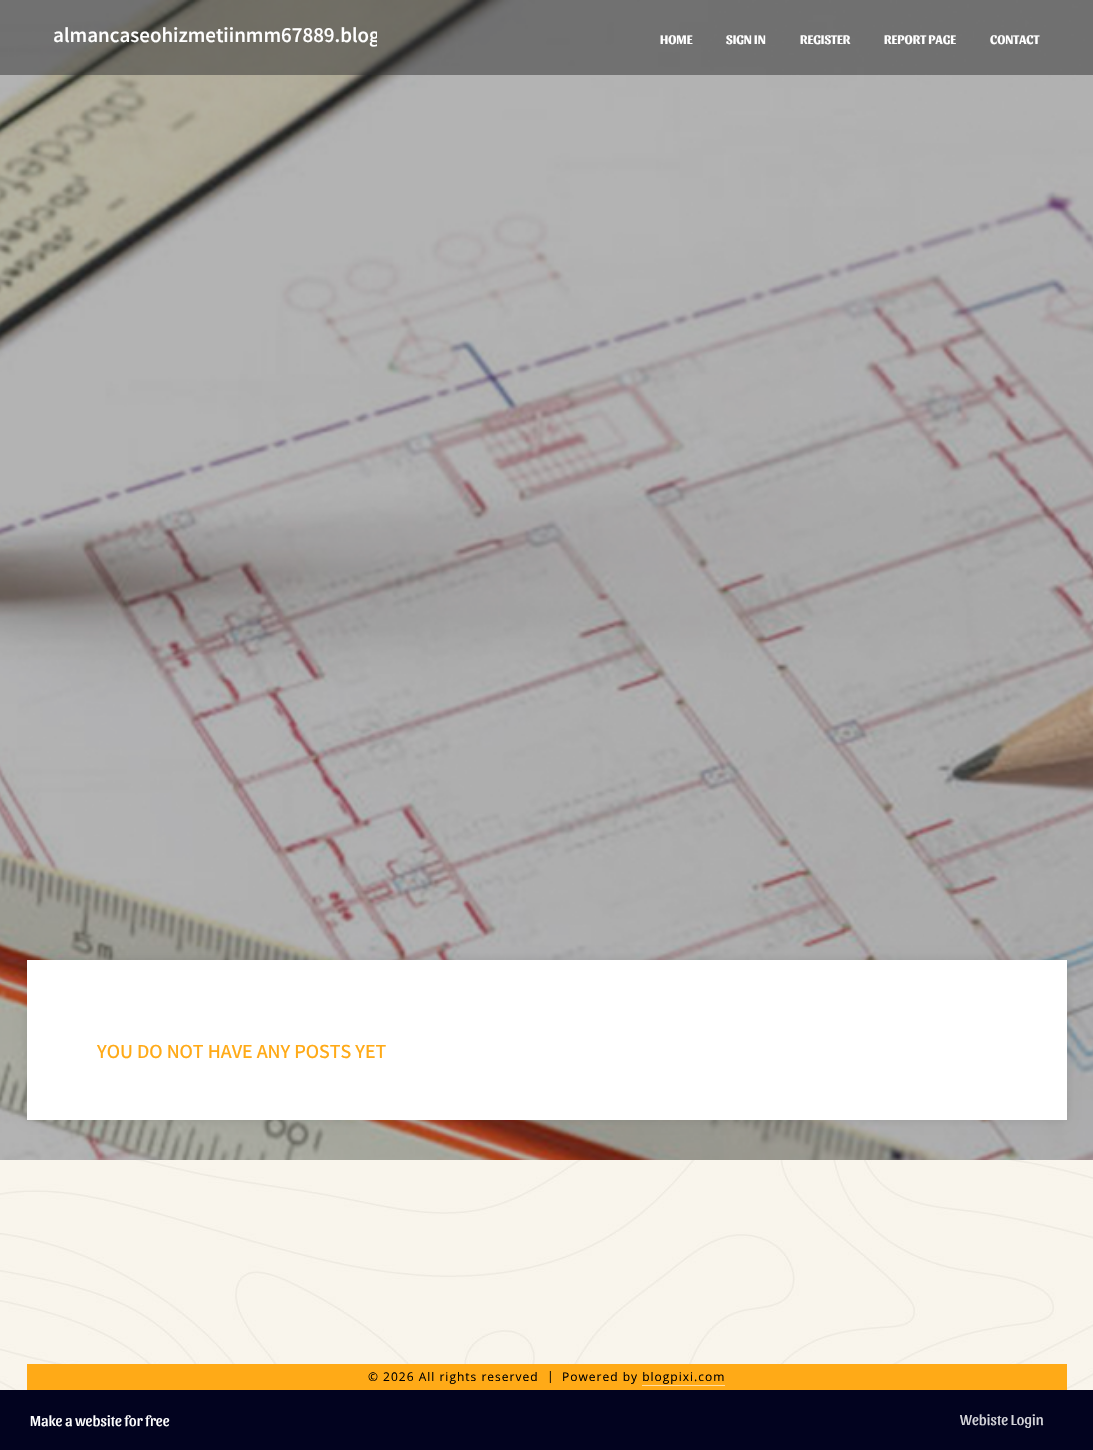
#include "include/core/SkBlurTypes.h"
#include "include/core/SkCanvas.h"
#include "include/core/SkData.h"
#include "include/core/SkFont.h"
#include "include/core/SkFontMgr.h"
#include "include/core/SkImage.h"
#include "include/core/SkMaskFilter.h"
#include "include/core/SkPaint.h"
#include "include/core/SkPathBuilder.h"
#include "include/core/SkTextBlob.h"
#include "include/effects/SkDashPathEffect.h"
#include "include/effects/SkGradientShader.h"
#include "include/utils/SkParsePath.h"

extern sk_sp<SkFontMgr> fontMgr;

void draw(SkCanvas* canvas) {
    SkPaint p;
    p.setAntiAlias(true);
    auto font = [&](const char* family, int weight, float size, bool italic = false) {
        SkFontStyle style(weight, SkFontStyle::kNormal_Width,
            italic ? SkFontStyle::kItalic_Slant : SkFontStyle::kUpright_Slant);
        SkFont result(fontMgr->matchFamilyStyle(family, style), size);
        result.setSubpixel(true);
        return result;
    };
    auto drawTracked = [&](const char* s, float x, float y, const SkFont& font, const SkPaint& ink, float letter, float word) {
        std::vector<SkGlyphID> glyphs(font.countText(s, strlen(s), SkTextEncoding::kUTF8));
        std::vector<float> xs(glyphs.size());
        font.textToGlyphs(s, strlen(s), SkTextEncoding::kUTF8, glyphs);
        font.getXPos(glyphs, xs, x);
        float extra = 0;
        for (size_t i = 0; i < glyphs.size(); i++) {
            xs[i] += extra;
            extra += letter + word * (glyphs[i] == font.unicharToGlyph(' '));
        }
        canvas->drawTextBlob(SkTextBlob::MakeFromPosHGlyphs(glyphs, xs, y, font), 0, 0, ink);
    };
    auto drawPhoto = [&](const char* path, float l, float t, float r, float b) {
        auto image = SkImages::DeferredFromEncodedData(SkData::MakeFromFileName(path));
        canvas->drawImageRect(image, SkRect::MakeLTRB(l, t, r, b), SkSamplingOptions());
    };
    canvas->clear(0xFFFFFFFF);
    drawPhoto("media/1.png", 0, 1160, 1093, 1390);
    drawPhoto("media/2.png", 0, 0, 1093, 1160);
    p.setColor(0x802F2F2F);
    canvas->drawRect(SkRect::MakeLTRB(0, 0, 1093, 75), p);
    canvas->save();
    canvas->clipRect(SkRect::MakeLTRB(49, 7, 377, 67));
    auto font1 = font("Varta", 700, 21);
    p.setColor(0xFFFFFFFF);
    canvas->drawString("almancaseohizmetiinmm67889.blog", 53, 42, font1, p);
    canvas->restore();
    auto font2 = font("Sansita", 700, 13);
    {
        const struct { const char* s; float x, y; } items[] = {
            {"HOME", 660, 44},
            {"SIGN IN", 726, 44},
            {"REGISTER", 800, 44},
            {"REPORT PAGE", 884, 44},
            {"CONTACT", 990, 44},
        };
        for (auto [s, x, y] : items) {
            canvas->drawString(s, x, y, font2, p);
        }
    }
    p.setColor(0x1A000000);
    p.setMaskFilter(SkMaskFilter::MakeBlur(kNormal_SkBlurStyle, 5));
    canvas->drawRect(SkRect::MakeLTRB(27, 960, 1067, 1120), p);
    p.setMaskFilter(nullptr);
    p.setColor(0xFFFFFFFF);
    canvas->drawRect(SkRect::MakeLTRB(27, 960, 1067, 1120), p);
    auto font3 = font("Varta", 600, 20);
    p.setColor(0xFFFFAA17);
    canvas->drawString("YOU DO NOT HAVE ANY POSTS YET", 97, 1058, font3, p);
    canvas->drawRect(SkRect::MakeLTRB(27, 1364, 1067, 1390), p);
    auto font4 = font("Open Sans", 400, 12);
    p.setColor(0xFF000000);
    {
        const struct { const char* s; float x, y; } items[] = {
            {"© 2026 All rights reserved", 368, 1381},
            {"|", 547, 1380},
            {"Powered by blogpixi.com", 562, 1381},
        };
        for (auto [s, x, y] : items) {
            drawTracked(s, x, y, font4, p, 1, 0);
        }
    }
    p.setColor(0xFFFFDDA2);
    canvas->drawRect(SkRect::MakeLTRB(642, 1385, 725, 1386), p);
    p.setColor(0xFF02031F);
    canvas->drawRect(SkRect::MakeLTRB(0, 1390, 1093, 1450), p);
    auto font5 = font("Sansita", 400, 15);
    p.setColor(0xFFFFFFFF);
    canvas->drawString("Make a website for free", 30, 1426, font5, p);
    p.setColor(0xFFD4D4D9);
    canvas->drawString("Webiste Login", 960, 1425, font5, p);
}
